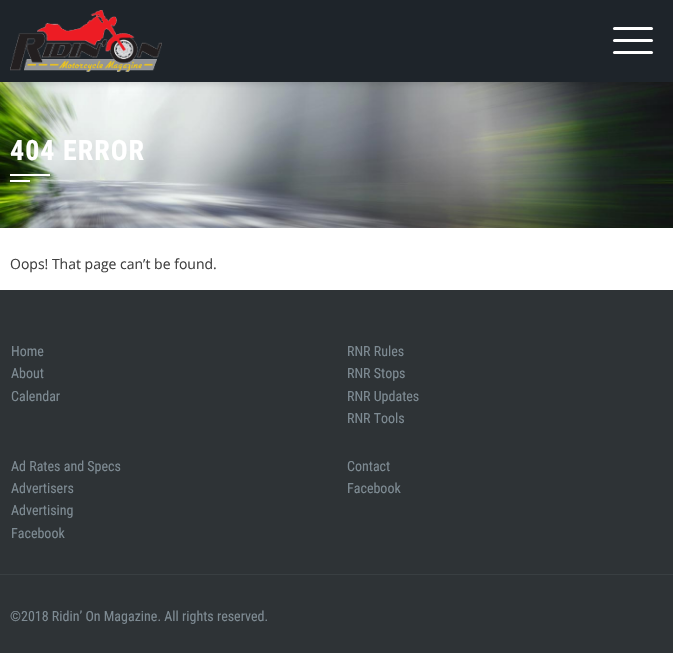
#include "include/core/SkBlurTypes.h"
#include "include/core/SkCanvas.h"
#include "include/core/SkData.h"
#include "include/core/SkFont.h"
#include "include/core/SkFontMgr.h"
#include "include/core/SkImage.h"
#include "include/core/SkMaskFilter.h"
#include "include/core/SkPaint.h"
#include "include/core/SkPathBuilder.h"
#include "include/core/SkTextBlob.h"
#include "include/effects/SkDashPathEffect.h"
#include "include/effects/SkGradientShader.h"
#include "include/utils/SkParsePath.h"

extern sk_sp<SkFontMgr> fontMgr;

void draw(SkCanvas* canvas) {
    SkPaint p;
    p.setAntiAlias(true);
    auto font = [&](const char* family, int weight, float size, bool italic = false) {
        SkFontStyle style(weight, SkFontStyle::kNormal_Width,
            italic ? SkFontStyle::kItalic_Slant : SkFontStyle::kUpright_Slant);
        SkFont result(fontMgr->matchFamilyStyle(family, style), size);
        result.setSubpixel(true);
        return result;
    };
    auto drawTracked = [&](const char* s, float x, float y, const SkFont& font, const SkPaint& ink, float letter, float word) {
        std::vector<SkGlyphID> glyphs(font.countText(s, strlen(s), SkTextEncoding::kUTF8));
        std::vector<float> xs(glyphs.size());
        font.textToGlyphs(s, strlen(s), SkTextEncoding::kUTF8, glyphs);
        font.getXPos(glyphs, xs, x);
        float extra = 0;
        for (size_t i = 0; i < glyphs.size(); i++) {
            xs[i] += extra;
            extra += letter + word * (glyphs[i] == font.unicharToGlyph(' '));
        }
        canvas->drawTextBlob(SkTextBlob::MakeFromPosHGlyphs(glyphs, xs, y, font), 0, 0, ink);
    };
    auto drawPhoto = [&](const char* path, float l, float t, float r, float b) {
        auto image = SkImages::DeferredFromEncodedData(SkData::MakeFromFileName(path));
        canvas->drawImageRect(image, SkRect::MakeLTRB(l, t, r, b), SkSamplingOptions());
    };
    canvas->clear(0xFFFFFFFF);
    drawPhoto("media/2.png", 0, 82, 673, 228);
    p.setColor(0x33000000);
    p.setMaskFilter(SkMaskFilter::MakeBlur(kNormal_SkBlurStyle, 4));
    canvas->drawRect(SkRect::MakeLTRB(0, 0, 673, 82), p);
    p.setMaskFilter(nullptr);
    p.setColor(0xFF1E242A);
    canvas->drawRect(SkRect::MakeLTRB(0, 0, 673, 82), p);
    drawPhoto("media/1.png", 10, 10, 162, 72);
    p.setColor(0xFFFFFFFF);
    canvas->drawRoundRect(SkRect::MakeLTRB(613, 39, 653, 42), 1.5f, 1.5f, p);
    canvas->drawRoundRect(SkRect::MakeLTRB(613, 27, 653, 30), 1.5f, 1.5f, p);
    canvas->drawRoundRect(SkRect::MakeLTRB(613, 51, 653, 54), 1.5f, 1.5f, p);
    auto font1 = font("Roboto Condensed", 700, 28);
    drawTracked("404 ERROR", 10, 160, font1, p, 1, 0);
    canvas->drawRect(SkRect::MakeLTRB(10, 174, 50, 176), p);
    canvas->drawRect(SkRect::MakeLTRB(10, 180, 30, 182), p);
    auto font2 = font("Open Sans", 400, 14);
    p.setColor(0xFF404040);
    canvas->drawString("Oops! That page can’t be found.", 10, 269, font2, p);
    p.setColor(0xFF2E3336);
    canvas->drawRect(SkRect::MakeLTRB(0, 290, 673, 653), p);
    p.setColor(0xFF393F42);
    canvas->drawRect(SkRect::MakeLTRB(0, 574, 673, 575), p);
    auto font3 = font("Roboto Condensed", 400, 14);
    p.setColor(0xFF7E8B93);
    {
        const struct { const char* s; float x, y; } items[] = {
            {"Home", 11, 356},
            {"About", 11, 378},
            {"Calendar", 11, 401},
            {"RNR Rules", 347, 356},
            {"RNR Stops", 347, 378},
            {"RNR Updates", 347, 401},
            {"RNR Tools", 347, 423},
            {"Ad Rates and Specs", 11, 471},
            {"Advertisers", 11, 493},
            {"Advertising", 11, 515},
            {"Facebook", 11, 538},
            {"Contact", 347, 471},
            {"Facebook", 347, 493},
            {"©2018 Ridin’ On Magazine. All rights reserved.", 10, 621},
        };
        for (auto [s, x, y] : items) {
            canvas->drawString(s, x, y, font3, p);
        }
    }
}
